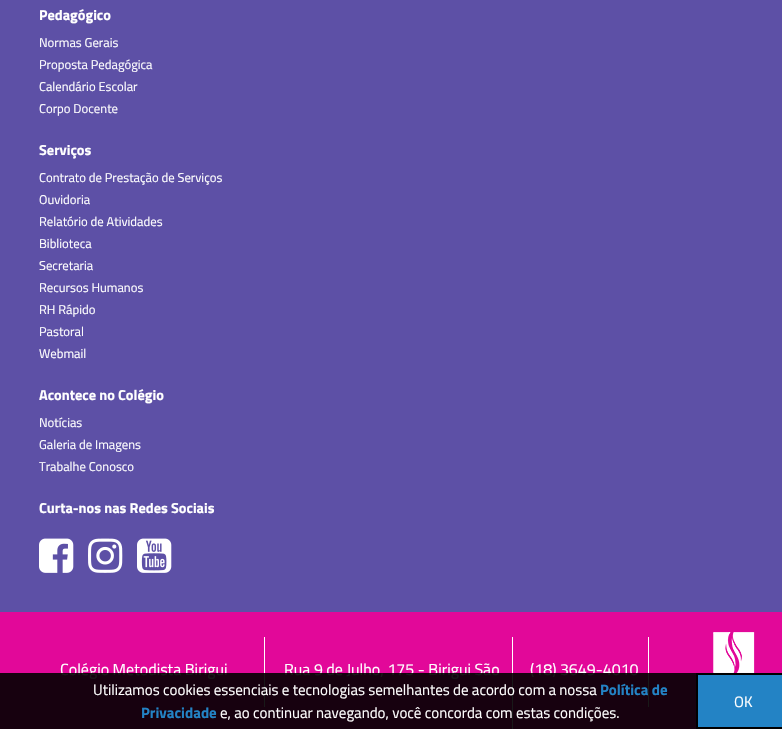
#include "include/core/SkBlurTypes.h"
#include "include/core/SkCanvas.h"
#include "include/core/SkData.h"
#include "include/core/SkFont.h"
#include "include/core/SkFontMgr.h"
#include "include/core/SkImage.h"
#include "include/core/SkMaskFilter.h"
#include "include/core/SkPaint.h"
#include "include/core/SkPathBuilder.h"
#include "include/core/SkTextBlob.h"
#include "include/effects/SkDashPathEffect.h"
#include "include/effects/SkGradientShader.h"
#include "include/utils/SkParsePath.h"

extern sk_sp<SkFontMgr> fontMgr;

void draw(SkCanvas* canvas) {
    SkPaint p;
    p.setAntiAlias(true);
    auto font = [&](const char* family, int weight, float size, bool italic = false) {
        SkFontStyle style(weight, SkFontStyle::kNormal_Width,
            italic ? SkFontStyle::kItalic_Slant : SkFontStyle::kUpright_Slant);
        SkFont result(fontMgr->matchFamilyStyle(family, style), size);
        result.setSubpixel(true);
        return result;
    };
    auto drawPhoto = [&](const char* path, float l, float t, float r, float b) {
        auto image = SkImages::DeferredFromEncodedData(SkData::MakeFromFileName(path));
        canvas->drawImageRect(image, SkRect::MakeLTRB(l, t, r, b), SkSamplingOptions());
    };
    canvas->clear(0xFF5D50A6);
    auto font1 = font("Titillium Web", 700, 14.4f);
    p.setColor(0xFFFFFFFF);
    canvas->drawString("Pedagógico", 39, 20, font1, p);
    auto font2 = font("Titillium Web", 400, 12.75f);
    {
        const struct { const char* s; float x, y; } items[] = {
            {"Normas Gerais", 39, 47},
            {"Proposta Pedagógica", 39, 69},
            {"Calendário Escolar", 39, 91},
            {"Corpo Docente", 39, 113},
        };
        for (auto [s, x, y] : items) {
            canvas->drawString(s, x, y, font2, p);
        }
    }
    canvas->drawString("Serviços", 39, 155, font1, p);
    {
        const struct { const char* s; float x, y; } items[] = {
            {"Contrato de Prestação de Serviços", 39, 182},
            {"Ouvidoria", 39, 204},
            {"Relatório de Atividades", 39, 226},
            {"Biblioteca", 39, 248},
            {"Secretaria", 39, 270},
            {"Recursos Humanos", 39, 292},
            {"RH Rápido", 39, 314},
            {"Pastoral", 39, 336},
            {"Webmail", 39, 358},
        };
        for (auto [s, x, y] : items) {
            canvas->drawString(s, x, y, font2, p);
        }
    }
    canvas->drawString("Acontece no Colégio", 39, 400, font1, p);
    {
        const struct { const char* s; float x, y; } items[] = {
            {"Notícias", 39, 427},
            {"Galeria de Imagens", 39, 449},
            {"Trabalhe Conosco", 39, 471},
        };
        for (auto [s, x, y] : items) {
            canvas->drawString(s, x, y, font2, p);
        }
    }
    canvas->drawString("Curta-nos nas Redes Sociais", 39, 513, font1, p);
    drawPhoto("media/1.png", 39, 538, 74, 573);
    drawPhoto("media/2.png", 88, 538, 123, 573);
    drawPhoto("media/3.png", 137, 538, 172, 573);
    p.setColor(0xFFE20899);
    canvas->drawRect(SkRect::MakeLTRB(0, 612, 782, 729), p);
    p.setColor(0xFFFFFFFF);
    canvas->drawRect(SkRect::MakeLTRB(264, 637, 265, 707), p);
    auto font3 = font("Titillium Web", 400, 16);
    canvas->drawString("Colégio Metodista Birigui", 60, 675, font3, p);
    canvas->drawRect(SkRect::MakeLTRB(512, 637, 513, 729), p);
    canvas->drawString("Rua 9 de Julho, 175 - Birigui São", 284, 675, font3, p);
    canvas->drawRect(SkRect::MakeLTRB(648, 637, 649, 707), p);
    canvas->drawString("(18) 3649-4010", 530, 675, font3, p);
    drawPhoto("media/4.png", 713, 632, 755, 673);
    p.setColor(0xE6000000);
    canvas->drawRect(SkRect::MakeLTRB(0, 673, 696, 729), p);
    auto font4 = font("Titillium Web", 400, 15);
    p.setColor(0xFFFFFFFF);
    canvas->drawString("Utilizamos cookies essenciais e tecnologias semelhantes de acordo com a nossa", 93, 695, font4, p);
    auto font5 = font("Titillium Web", 700, 15);
    p.setColor(0xFF2383C5);
    canvas->drawString("Política de", 600, 695, font5, p);
    canvas->drawString("Privacidade", 141, 718, font5, p);
    p.setColor(0xFFFFFFFF);
    canvas->drawString("e, ao continuar navegando, você concorda com estas condições.", 220, 718, font4, p);
    p.setColor(0xFF2383C5);
    canvas->drawRect(SkRect::MakeLTRB(697, 674, 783, 728), p);
    p.setStyle(SkPaint::kStroke_Style);
    p.setStrokeWidth(2);
    p.setColor(0xFF000000);
    canvas->drawRect(SkRect::MakeLTRB(697, 674, 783, 728), p);
    p.setStyle(SkPaint::kFill_Style);
    p.setColor(0xFFFFFFFF);
    canvas->drawString("OK", 734, 707, font4, p);
}
